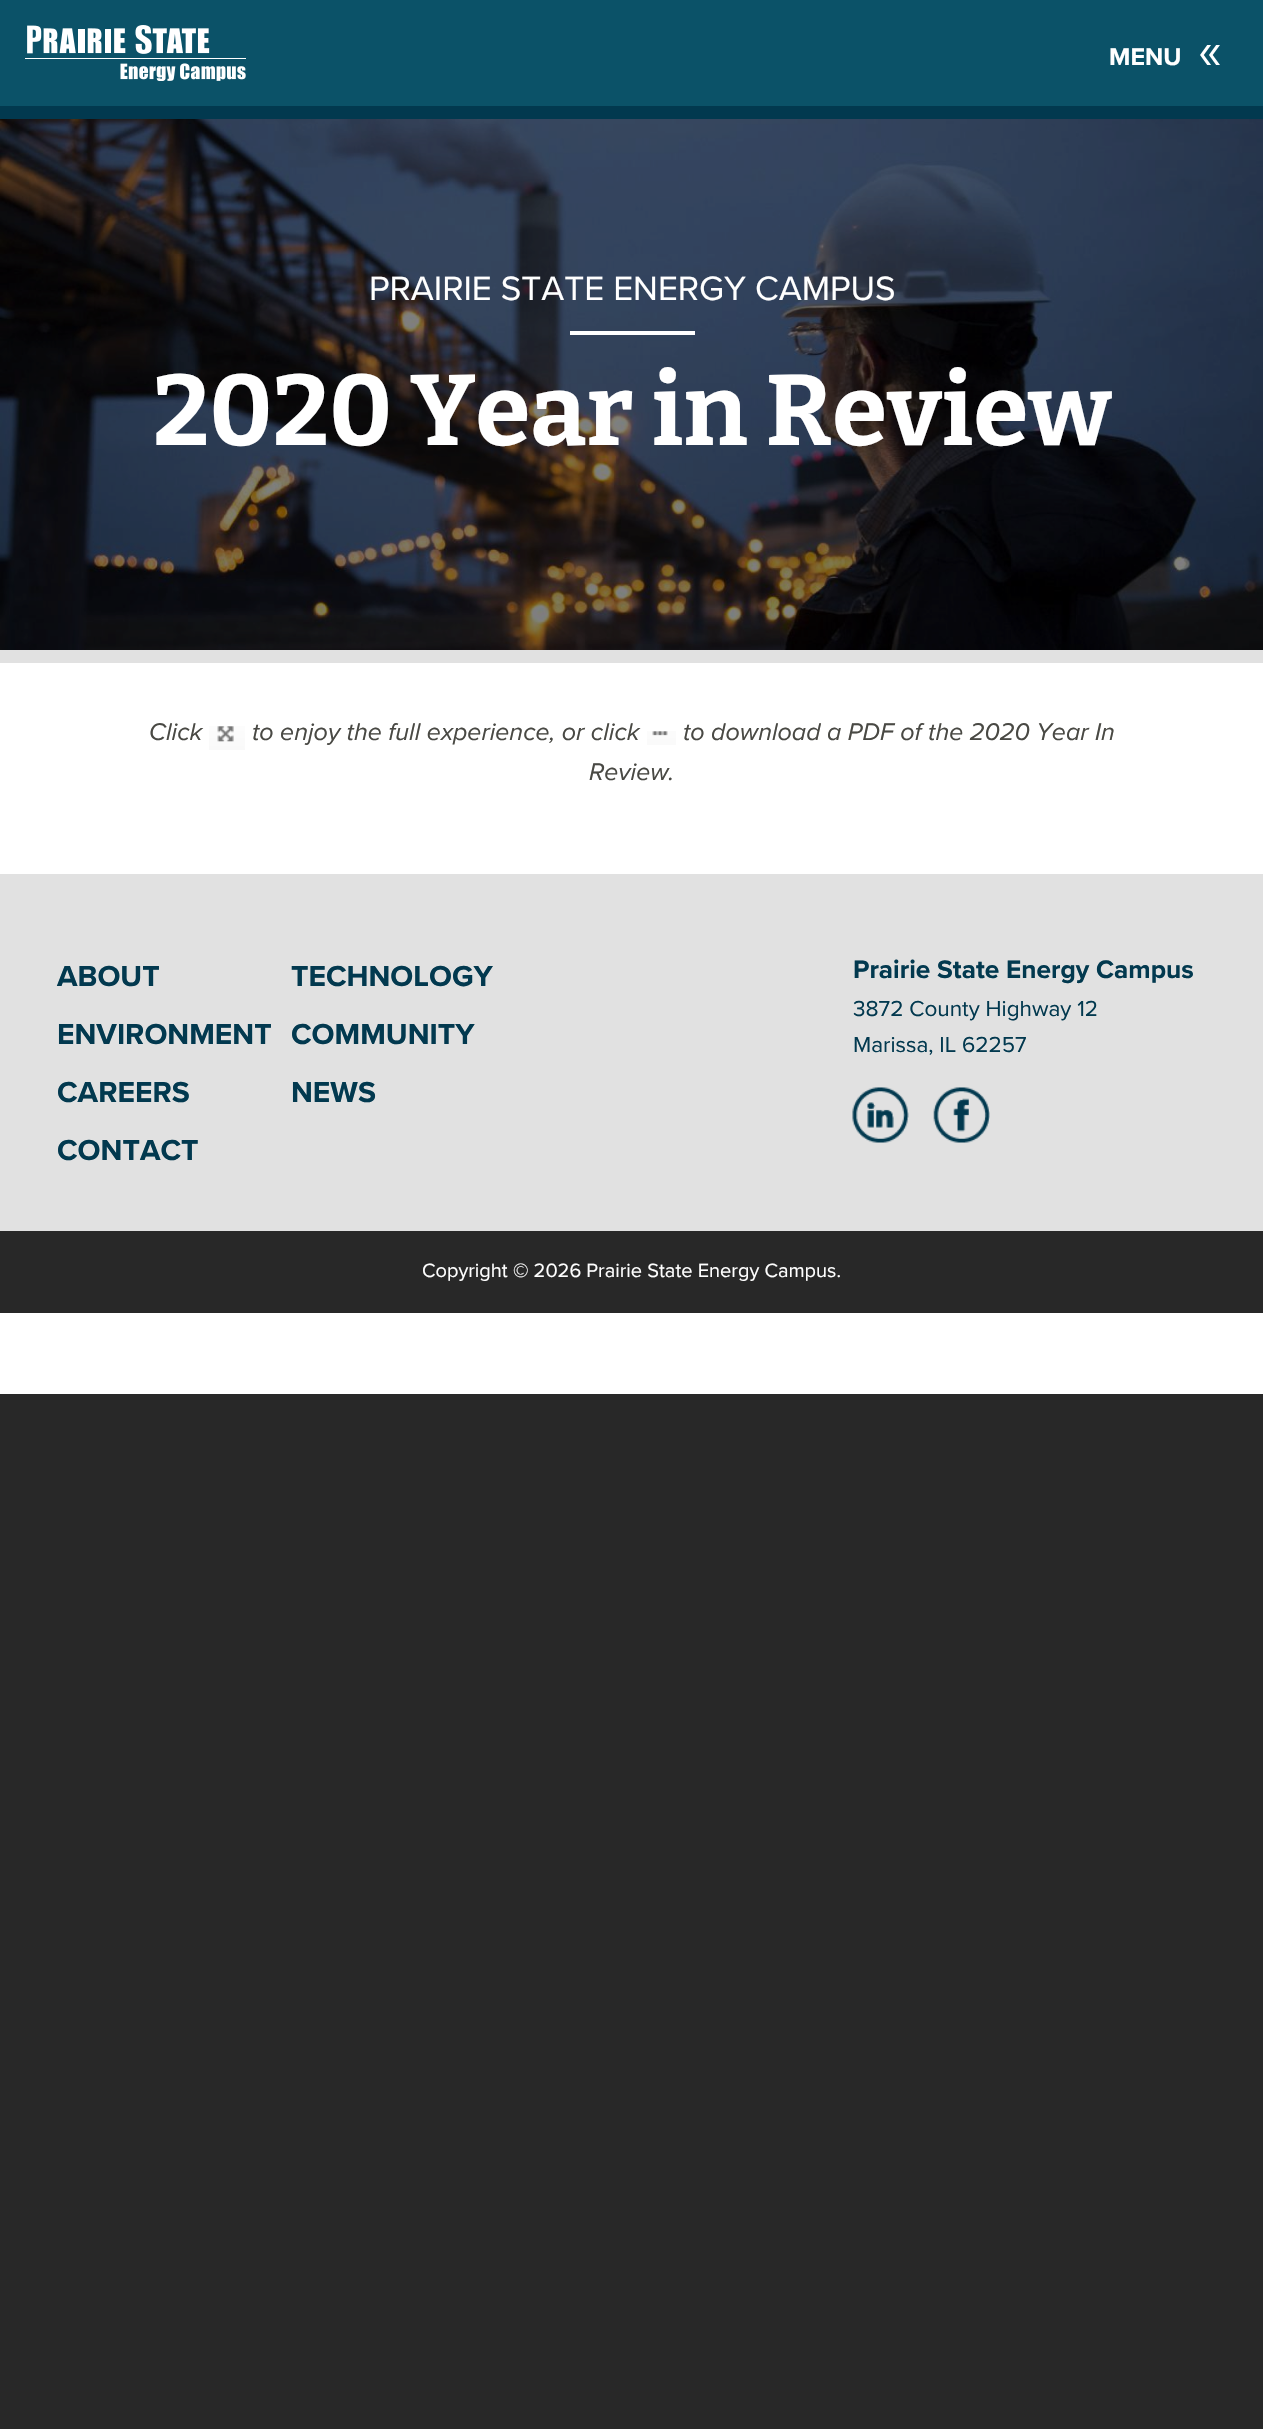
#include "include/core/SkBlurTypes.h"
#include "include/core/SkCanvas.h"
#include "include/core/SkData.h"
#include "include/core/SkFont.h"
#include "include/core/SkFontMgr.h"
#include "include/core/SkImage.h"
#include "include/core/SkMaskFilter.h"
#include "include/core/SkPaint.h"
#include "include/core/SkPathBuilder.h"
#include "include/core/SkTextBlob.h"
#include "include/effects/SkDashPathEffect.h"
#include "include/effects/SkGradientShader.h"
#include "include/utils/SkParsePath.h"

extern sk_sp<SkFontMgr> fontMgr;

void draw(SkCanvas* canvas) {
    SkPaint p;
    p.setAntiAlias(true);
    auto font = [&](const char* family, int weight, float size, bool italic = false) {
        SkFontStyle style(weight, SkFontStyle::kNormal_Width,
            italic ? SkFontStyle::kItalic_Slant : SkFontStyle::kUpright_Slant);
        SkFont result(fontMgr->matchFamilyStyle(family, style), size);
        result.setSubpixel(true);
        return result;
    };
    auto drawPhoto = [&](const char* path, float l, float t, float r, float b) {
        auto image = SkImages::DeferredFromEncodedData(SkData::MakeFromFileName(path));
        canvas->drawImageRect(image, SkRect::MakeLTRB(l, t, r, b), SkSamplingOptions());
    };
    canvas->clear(0xFF282828);
    {
        const struct { float l, t, r, b; SkColor color; } items[] = {
            {0, 663, 1263, 1394, 0xFFFFFFFF},
            {0, 0, 1263, 106, 0xFF0B5268},
            {0, 106, 1263, 119, 0xFF02394F},
        };
        for (auto [l, t, r, b, color] : items) {
            p.setColor(color);
            canvas->drawRect(SkRect::MakeLTRB(l, t, r, b), p);
        }
    }
    drawPhoto("media/1.png", 25, 25, 246, 81);
    auto font1 = font("Proxima Nova", 700, 25);
    p.setColor(0xFFFFFFFF);
    canvas->drawString("MENU", 1109, 65, font1, p);
    drawPhoto("media/2.png", 1200, 45, 1220, 65);
    drawPhoto("media/3.png", 0, 119, 1263, 650);
    auto font2 = font("Proxima Nova", 400, 35);
    canvas->drawString("PRAIRIE STATE ENERGY CAMPUS", 369, 300, font2, p);
    canvas->drawRect(SkRect::MakeLTRB(570, 331, 695, 335), p);
    auto font3 = font("Bitter", 100, 100);
    canvas->drawString("2020 Year in Review", 153, 445, font3, p);
    p.setColor(0xFFE1E1E1);
    canvas->drawRect(SkRect::MakeLTRB(0, 650, 1263, 663), p);
    auto font4 = font("Proxima Nova", 400, 25, true);
    p.setColor(0xFF494944);
    canvas->drawString("Click", 149, 740, font4, p);
    drawPhoto("media/4.png", 209, 726, 245, 750);
    canvas->drawString("to enjoy the full experience, or click", 252, 740, font4, p);
    drawPhoto("media/5.png", 647, 731, 676, 745);
    canvas->drawString("to download a PDF of the 2020 Year In", 683, 740, font4, p);
    canvas->drawString("Review.", 589, 780, font4, p);
    p.setColor(0xFFE1E1E1);
    canvas->drawRect(SkRect::MakeLTRB(0, 874, 1263, 1231), p);
    auto font5 = font("Proxima Nova", 700, 30);
    p.setColor(0xFF02394F);
    {
        const struct { const char* s; float x, y; } items[] = {
            {"ABOUT", 57, 986},
            {"TECHNOLOGY", 291, 986},
            {"ENVIRONMENT", 57, 1044},
            {"COMMUNITY", 291, 1044},
            {"CAREERS", 57, 1102},
            {"NEWS", 291, 1102},
            {"CONTACT", 57, 1160},
        };
        for (auto [s, x, y] : items) {
            canvas->drawString(s, x, y, font5, p);
        }
    }
    auto font6 = font("Proxima Nova", 700, 26.25f);
    canvas->drawString("Prairie State Energy Campus", 853, 978, font6, p);
    auto font7 = font("Proxima Nova", 400, 22.5f);
    canvas->drawString("3872 County Highway 12", 853, 1016, font7, p);
    canvas->drawString("Marissa, IL 62257", 853, 1052, font7, p);
    drawPhoto("media/6.png", 852, 1087, 909, 1143);
    drawPhoto("media/7.png", 933, 1087, 990, 1143);
    p.setColor(0xFF282828);
    canvas->drawRect(SkRect::MakeLTRB(0, 1231, 1263, 1313), p);
    auto font8 = font("Proxima Nova", 400, 20);
    p.setColor(0xFFFFFFFF);
    canvas->drawString("Copyright © 2026 Prairie State Energy Campus.", 422, 1277, font8, p);
}
